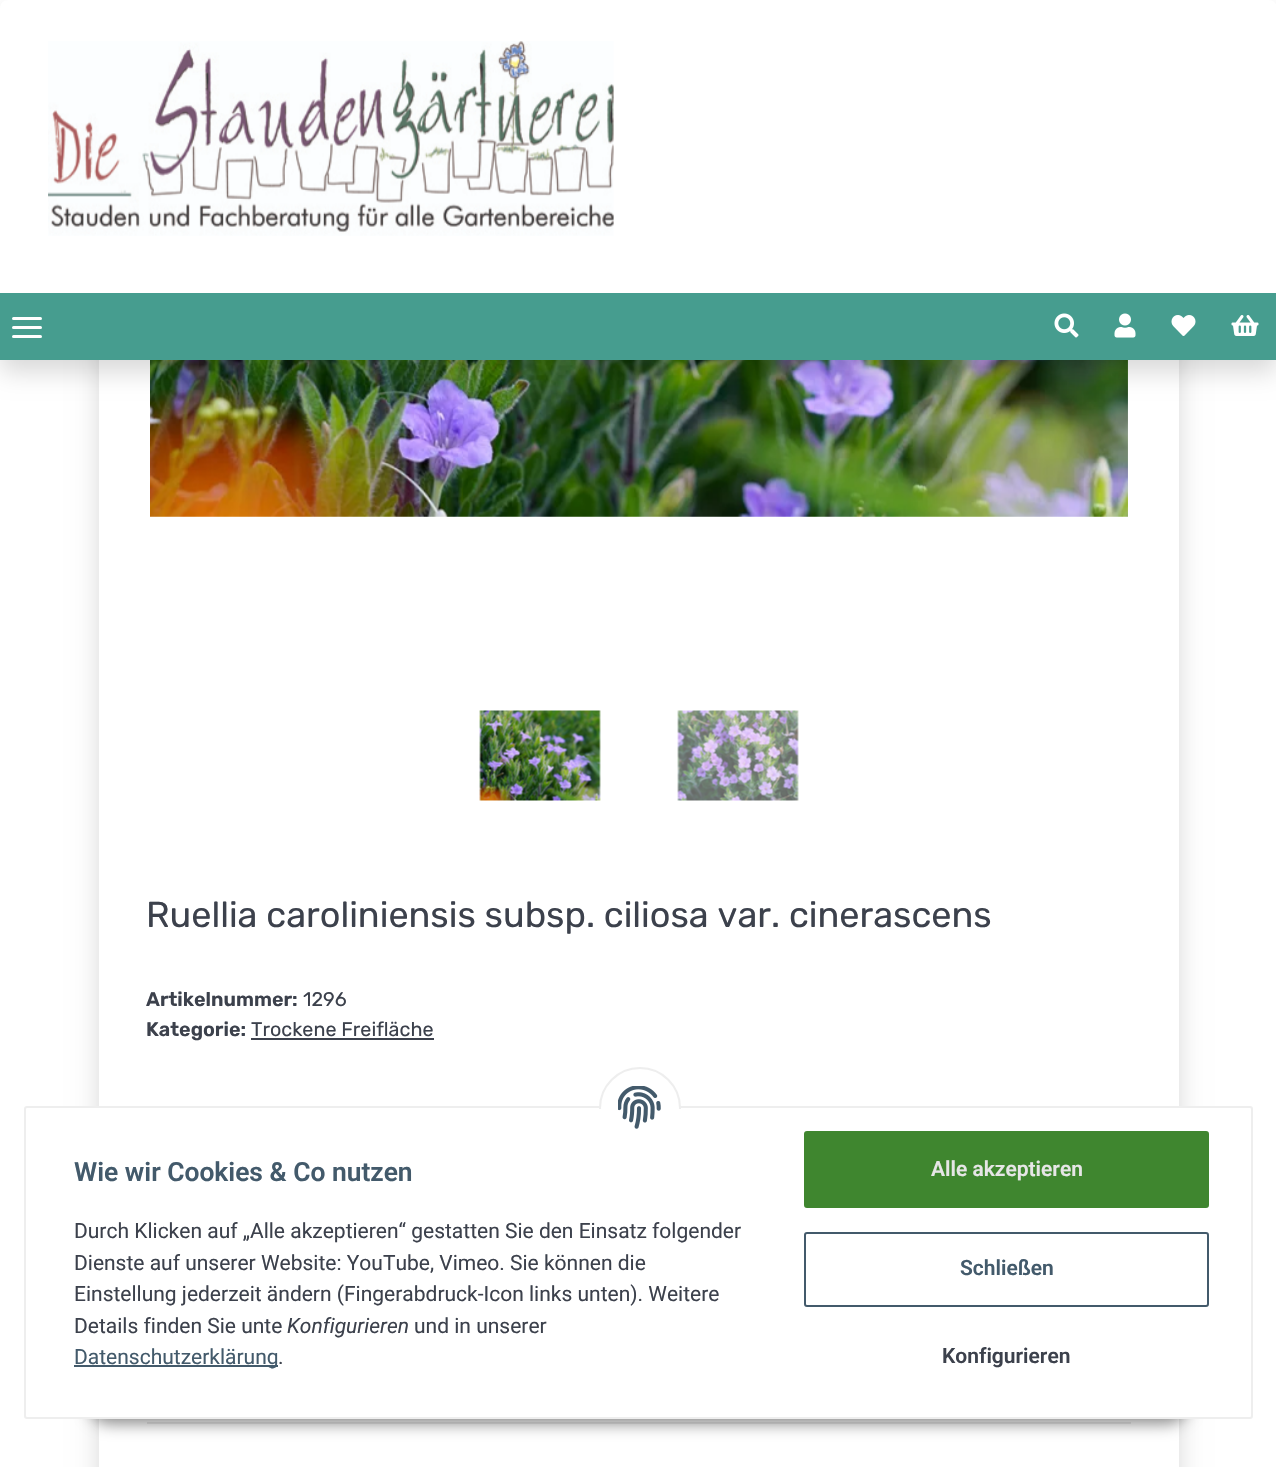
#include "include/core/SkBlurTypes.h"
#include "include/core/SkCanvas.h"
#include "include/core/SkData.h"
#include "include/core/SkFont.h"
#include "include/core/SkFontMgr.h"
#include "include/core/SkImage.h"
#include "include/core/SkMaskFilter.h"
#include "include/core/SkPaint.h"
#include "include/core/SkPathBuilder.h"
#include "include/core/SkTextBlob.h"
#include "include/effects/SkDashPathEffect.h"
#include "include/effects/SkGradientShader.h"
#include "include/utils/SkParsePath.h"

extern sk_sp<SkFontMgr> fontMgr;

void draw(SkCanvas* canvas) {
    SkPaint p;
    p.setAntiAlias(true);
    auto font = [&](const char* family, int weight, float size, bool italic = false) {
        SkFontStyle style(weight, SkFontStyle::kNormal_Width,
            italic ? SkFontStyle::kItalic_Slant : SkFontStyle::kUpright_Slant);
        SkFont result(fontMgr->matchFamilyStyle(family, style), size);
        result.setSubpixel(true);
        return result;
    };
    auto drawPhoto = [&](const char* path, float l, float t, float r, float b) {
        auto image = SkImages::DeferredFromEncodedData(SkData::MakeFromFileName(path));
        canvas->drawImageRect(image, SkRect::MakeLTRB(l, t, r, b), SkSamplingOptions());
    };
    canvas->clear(0xFFFFFFFF);
    canvas->save();
    canvas->clipPath(SkPathBuilder(SkPathFillType::kEvenOdd).moveTo(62, 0).lineTo(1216, 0).lineTo(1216, 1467).lineTo(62, 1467).close().moveTo(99, -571).lineTo(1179, -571).lineTo(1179, 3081).lineTo(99, 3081).close().detach(), true);
    p.setColor(0x26000000);
    p.setMaskFilter(SkMaskFilter::MakeBlur(kNormal_SkBlurStyle, 12));
    canvas->drawRect(SkRect::MakeLTRB(99, -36, 1179, 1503), p);
    p.setMaskFilter(nullptr);
    canvas->restore();
    drawPhoto("media/6.png", 150, 360, 1128, 517);
    p.setMaskFilter(SkMaskFilter::MakeBlur(kNormal_SkBlurStyle, 12));
    canvas->drawRoundRect(SkRect::MakeLTRB(0, 12, 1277, 372), 8, 8, p);
    p.setMaskFilter(nullptr);
    p.setColor(0xFFFFFFFF);
    canvas->drawPath(SkPathBuilder().moveTo(8, 0).lineTo(1269, 0).cubicTo(1273.5f, 0, 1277, 3.5f, 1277, 8).lineTo(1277, 360).lineTo(0, 360).lineTo(0, 8).cubicTo(0, 3.5f, 3.5f, 0, 8, 0).close().detach(), p);
    drawPhoto("media/1.png", 48, 41, 614, 236);
    p.setColor(0xFF469D8F);
    canvas->drawRect(SkRect::MakeLTRB(0, 293, 1276, 360), p);
    p.setColor(0xFFFFFFFF);
    canvas->drawRoundRect(SkRect::MakeLTRB(12, 326, 42, 329), 1.5f, 1.5f, p);
    canvas->drawRoundRect(SkRect::MakeLTRB(12, 317, 42, 320), 1.5f, 1.5f, p);
    canvas->drawRoundRect(SkRect::MakeLTRB(12, 335, 42, 338), 1.5f, 1.5f, p);
    drawPhoto("media/2.png", 1054, 313, 1079, 338);
    drawPhoto("media/3.png", 1114, 313, 1136, 338);
    drawPhoto("media/4.png", 1171, 315, 1196, 336);
    drawPhoto("media/5.png", 1231, 315, 1259, 336);
    drawPhoto("media/7.png", 479, 710, 601, 801);
    drawPhoto("media/8.png", 677, 710, 799, 801);
    auto font1 = font("Rubik", 300, 36);
    p.setColor(0xFF3C414C);
    canvas->drawString("Ruellia caroliniensis subsp. ciliosa var. cinerascens", 146, 927, font1, p);
    auto font2 = font("Rubik", 600, 19.75f);
    canvas->drawString("Artikelnummer:", 146, 1006, font2, p);
    auto font3 = font("Rubik", 300, 19.75f);
    canvas->drawString("1296", 303, 1006, font3, p);
    canvas->drawString("Kategorie:", 146, 1036, font2, p);
    canvas->drawString("Trockene Freifläche", 251, 1036, font3, p);
    canvas->drawRect(SkRect::MakeLTRB(251, 1038, 434, 1040), p);
    p.setColor(0xFFEBEBEB);
    canvas->drawRect(SkRect::MakeLTRB(147, 1422, 1131, 1424), p);
    p.setColor(0x73000000);
    p.setMaskFilter(SkMaskFilter::MakeBlur(kNormal_SkBlurStyle, 7.5f));
    canvas->drawRoundRect(SkRect::MakeLTRB(87, 1376, 1190, 1424), 24, 24, p);
    p.setMaskFilter(nullptr);
    p.setColor(0xFFFFFFFF);
    canvas->drawRoundRect(SkRect::MakeLTRB(25, 1107, 1252, 1418), 2, 2, p);
    p.setStyle(SkPaint::kStroke_Style);
    p.setStrokeWidth(2);
    p.setColor(0xFFEEEEEE);
    canvas->drawRoundRect(SkRect::MakeLTRB(25, 1107, 1252, 1418), 2, 2, p);
    p.setStyle(SkPaint::kFill_Style);
    p.setColor(0xFFFFFFFF);
    canvas->drawCircle(640, 1108, 40, p);
    p.setStyle(SkPaint::kStroke_Style);
    p.setColor(0xFFEEEEEE);
    canvas->drawCircle(640, 1108, 40, p);
    p.setStyle(SkPaint::kFill_Style);
    p.setColor(0xFFFFFFFF);
    canvas->drawRect(SkRect::MakeLTRB(599, 1109, 681, 1149), p);
    drawPhoto("media/9.png", 618, 1086, 661, 1129);
    auto font4 = font("Roboto", 600, 26.4f);
    p.setColor(0xFF435A6B);
    canvas->drawString("Wie wir Cookies & Co nutzen", 74, 1181, font4, p);
    auto font5 = font("Roboto", 400, 21);
    p.setColor(0xFF3C414C);
    {
        const struct { const char* s; float x, y; } items[] = {
            {"Durch Klicken auf „Alle akzeptieren“ gestatten Sie den Einsatz folgender", 74, 1238},
            {"Dienste auf unserer Website: YouTube, Vimeo. Sie können die", 74, 1270},
            {"Einstellung jederzeit ändern (Fingerabdruck-Icon links unten). Weitere", 74, 1301},
            {"Details finden Sie unte", 74, 1333},
        };
        for (auto [s, x, y] : items) {
            canvas->drawString(s, x, y, font5, p);
        }
    }
    auto font6 = font("Roboto", 400, 21, true);
    canvas->drawString("Konfigurieren", 287, 1333, font6, p);
    canvas->drawString("und in unserer", 414, 1333, font5, p);
    p.setColor(0xFF435A6B);
    canvas->drawRect(SkRect::MakeLTRB(74, 1365, 278, 1367), p);
    canvas->drawString("Datenschutzerklärung", 74, 1364, font5, p);
    p.setColor(0xFF3C414C);
    canvas->drawString(".", 278, 1364, font5, p);
    p.setColor(0xFF3F862F);
    canvas->drawRoundRect(SkRect::MakeLTRB(805, 1132, 1208, 1207), 2, 2, p);
    p.setStyle(SkPaint::kStroke_Style);
    canvas->drawRoundRect(SkRect::MakeLTRB(805, 1132, 1208, 1207), 2, 2, p);
    auto font7 = font("Roboto", 600, 21);
    p.setStyle(SkPaint::kFill_Style);
    p.setColor(0xFFE6E6E6);
    canvas->drawString("Alle akzeptieren", 931, 1176, font7, p);
    p.setStyle(SkPaint::kStroke_Style);
    p.setColor(0xFF435A6B);
    canvas->drawRoundRect(SkRect::MakeLTRB(805, 1233, 1208, 1306), 2, 2, p);
    p.setStyle(SkPaint::kFill_Style);
    canvas->drawString("Schließen", 960, 1275, font7, p);
    p.setColor(0xFF3C414C);
    canvas->drawString("Konfigurieren", 942, 1363, font7, p);
}
